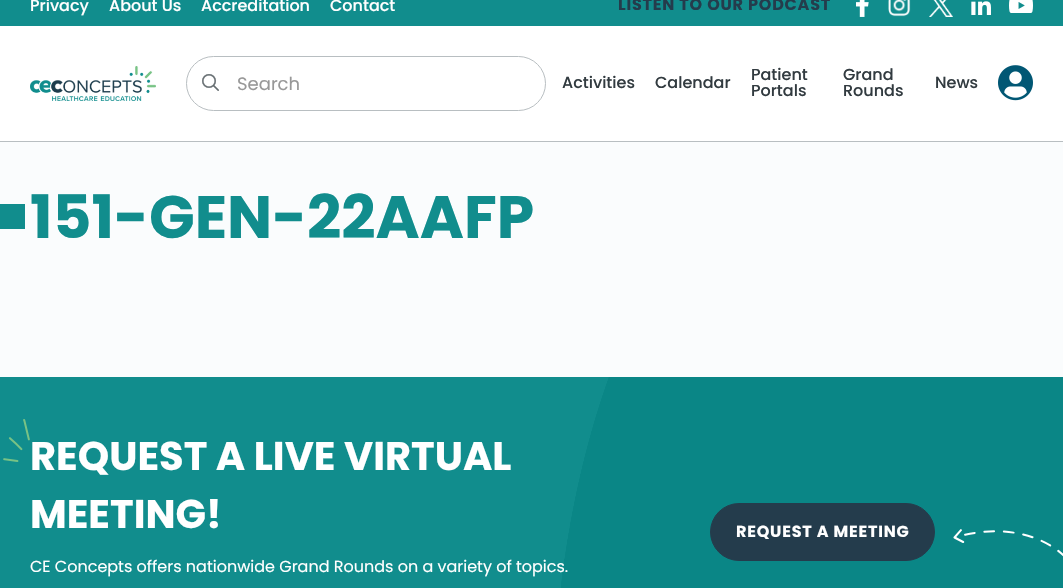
#include "include/core/SkBlurTypes.h"
#include "include/core/SkCanvas.h"
#include "include/core/SkData.h"
#include "include/core/SkFont.h"
#include "include/core/SkFontMgr.h"
#include "include/core/SkImage.h"
#include "include/core/SkMaskFilter.h"
#include "include/core/SkPaint.h"
#include "include/core/SkPathBuilder.h"
#include "include/core/SkTextBlob.h"
#include "include/effects/SkDashPathEffect.h"
#include "include/effects/SkGradientShader.h"
#include "include/utils/SkParsePath.h"

extern sk_sp<SkFontMgr> fontMgr;

void draw(SkCanvas* canvas) {
    SkPaint p;
    p.setAntiAlias(true);
    auto font = [&](const char* family, int weight, float size, bool italic = false) {
        SkFontStyle style(weight, SkFontStyle::kNormal_Width,
            italic ? SkFontStyle::kItalic_Slant : SkFontStyle::kUpright_Slant);
        SkFont result(fontMgr->matchFamilyStyle(family, style), size);
        result.setSubpixel(true);
        return result;
    };
    auto drawTracked = [&](const char* s, float x, float y, const SkFont& font, const SkPaint& ink, float letter, float word) {
        std::vector<SkGlyphID> glyphs(font.countText(s, strlen(s), SkTextEncoding::kUTF8));
        std::vector<float> xs(glyphs.size());
        font.textToGlyphs(s, strlen(s), SkTextEncoding::kUTF8, glyphs);
        font.getXPos(glyphs, xs, x);
        float extra = 0;
        for (size_t i = 0; i < glyphs.size(); i++) {
            xs[i] += extra;
            extra += letter + word * (glyphs[i] == font.unicharToGlyph(' '));
        }
        canvas->drawTextBlob(SkTextBlob::MakeFromPosHGlyphs(glyphs, xs, y, font), 0, 0, ink);
    };
    auto drawPhoto = [&](const char* path, float l, float t, float r, float b) {
        auto image = SkImages::DeferredFromEncodedData(SkData::MakeFromFileName(path));
        canvas->drawImageRect(image, SkRect::MakeLTRB(l, t, r, b), SkSamplingOptions());
    };
    canvas->clear(0xFFFAFCFD);
    p.setColor(0xFF118D8D);
    canvas->drawRect(SkRect::MakeLTRB(0, 0, 1063, 26), p);
    auto font1 = font("Poppins", 500, 16);
    p.setColor(0xFFFFFFFF);
    {
        const struct { const char* s; float x, y; } items[] = {
            {"Privacy", 30, 11},
            {"About Us", 109, 11},
            {"Accreditation", 201, 11},
            {"Contact", 330, 11},
        };
        for (auto [s, x, y] : items) {
            canvas->drawString(s, x, y, font1, p);
        }
    }
    auto font2 = font("Poppins", 700, 16);
    p.setColor(0xFF243C4C);
    drawTracked("LISTEN TO OUR PODCAST", 618, 10, font2, p, 0.8f, 0);
    drawPhoto("media/1.png", 856, 0, 869, 17);
    drawPhoto("media/2.png", 888, 0, 911, 17);
    drawPhoto("media/3.png", 929, 0, 953, 17);
    drawPhoto("media/4.png", 971, 1, 991, 15);
    drawPhoto("media/5.png", 1009, 0, 1033, 13);
    p.setColor(0xFFFFFFFF);
    canvas->drawRect(SkRect::MakeLTRB(0, 26, 1063, 141), p);
    p.setColor(0xFFB8BEC1);
    canvas->drawRect(SkRect::MakeLTRB(0, 141, 1063, 142), p);
    drawPhoto("media/6.png", 30, 66, 156, 101);
    p.setStyle(SkPaint::kStroke_Style);
    p.setStrokeWidth(1);
    canvas->drawRoundRect(SkRect::MakeLTRB(186.5f, 56.5f, 545.5f, 110.5f), 27, 27, p);
    drawPhoto("media/7.png", 202, 74, 219, 91);
    auto font3 = font("Poppins", 400, 18);
    p.setStyle(SkPaint::kFill_Style);
    p.setColor(0xFF989898);
    canvas->drawString("Search", 237, 90, font3, p);
    p.setColor(0xFF323B40);
    {
        const struct { const char* s; float x, y; } items[] = {
            {"Activities", 562, 88},
            {"Calendar", 655, 88},
            {"Patient", 751, 80},
            {"Portals", 751, 96},
            {"Grand", 843, 80},
            {"Rounds", 843, 96},
            {"News", 935, 88},
        };
        for (auto [s, x, y] : items) {
            canvas->drawString(s, x, y, font1, p);
        }
    }
    drawPhoto("media/8.png", 998, 65, 1033, 101);
    p.setColor(0xFF118D8D);
    canvas->drawRect(SkRect::MakeLTRB(0, 204, 25, 229), p);
    auto font4 = font("Poppins", 700, 60);
    canvas->drawString("151-GEN-22AAFP", 30, 238, font4, p);
    canvas->drawRect(SkRect::MakeLTRB(0, 377, 609, 588), p);
    drawPhoto("media/9.png", 561, 377, 1063, 588);
    drawPhoto("media/10.png", 3, 419, 30, 462);
    auto font5 = font("Poppins", 700, 40);
    p.setColor(0xFFFFFFFF);
    canvas->drawString("REQUEST A LIVE VIRTUAL", 30, 470, font5, p);
    canvas->drawString("MEETING!", 30, 528, font5, p);
    auto font6 = font("Poppins", 400, 16);
    canvas->drawString("CE Concepts offers nationwide Grand Rounds on a variety of topics.", 30, 572, font6, p);
    p.setColor(0xFF243C4C);
    canvas->drawRoundRect(SkRect::MakeLTRB(710.5f, 503.5f, 934.5f, 560.5f), 28.5f, 28.5f, p);
    p.setStyle(SkPaint::kStroke_Style);
    canvas->drawRoundRect(SkRect::MakeLTRB(710.5f, 503.5f, 934.5f, 560.5f), 28.5f, 28.5f, p);
    p.setStyle(SkPaint::kFill_Style);
    p.setColor(0xFFFFFFFF);
    drawTracked("REQUEST A MEETING", 736, 537, font2, p, 0.8f, 0);
    p.setStyle(SkPaint::kStroke_Style);
    p.setStrokeWidth(2);
    p.setStrokeCap(SkPaint::kRound_Cap);
    p.setPathEffect(SkDashPathEffect::Make({{9.76f, 9.76f}}, 0));
    canvas->drawPath(SkPathBuilder().moveTo(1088.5f, 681.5f).cubicTo(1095.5f, 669, 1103.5f, 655.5f, 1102, 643).cubicTo(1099.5f, 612.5f, 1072, 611, 1050, 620).cubicTo(1027.5f, 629.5f, 1010, 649, 1028, 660.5f).cubicTo(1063.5f, 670, 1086, 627, 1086.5f, 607).cubicTo(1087.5f, 555, 1028.5f, 515.5f, 954.5f, 537.5f).moveTo(954.5f, 537.5f).lineTo(967, 544).moveTo(954.5f, 537.5f).lineTo(965, 525.5f).detach(), p);
    p.setPathEffect(nullptr);
}
